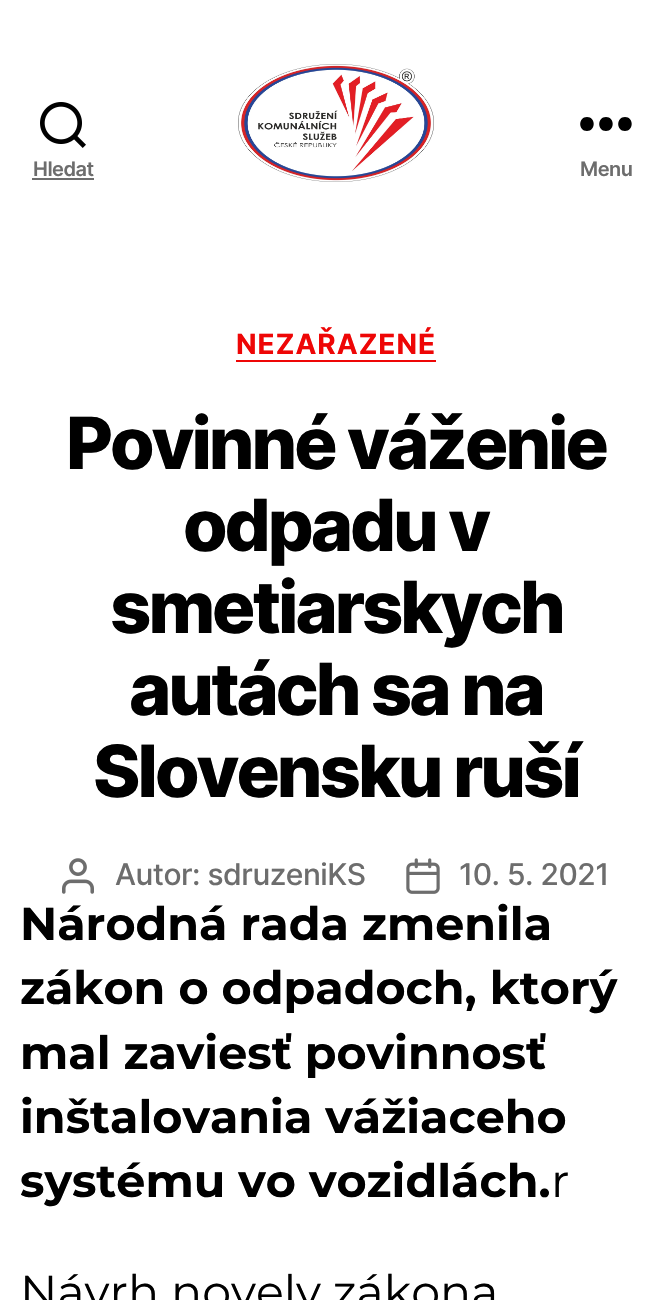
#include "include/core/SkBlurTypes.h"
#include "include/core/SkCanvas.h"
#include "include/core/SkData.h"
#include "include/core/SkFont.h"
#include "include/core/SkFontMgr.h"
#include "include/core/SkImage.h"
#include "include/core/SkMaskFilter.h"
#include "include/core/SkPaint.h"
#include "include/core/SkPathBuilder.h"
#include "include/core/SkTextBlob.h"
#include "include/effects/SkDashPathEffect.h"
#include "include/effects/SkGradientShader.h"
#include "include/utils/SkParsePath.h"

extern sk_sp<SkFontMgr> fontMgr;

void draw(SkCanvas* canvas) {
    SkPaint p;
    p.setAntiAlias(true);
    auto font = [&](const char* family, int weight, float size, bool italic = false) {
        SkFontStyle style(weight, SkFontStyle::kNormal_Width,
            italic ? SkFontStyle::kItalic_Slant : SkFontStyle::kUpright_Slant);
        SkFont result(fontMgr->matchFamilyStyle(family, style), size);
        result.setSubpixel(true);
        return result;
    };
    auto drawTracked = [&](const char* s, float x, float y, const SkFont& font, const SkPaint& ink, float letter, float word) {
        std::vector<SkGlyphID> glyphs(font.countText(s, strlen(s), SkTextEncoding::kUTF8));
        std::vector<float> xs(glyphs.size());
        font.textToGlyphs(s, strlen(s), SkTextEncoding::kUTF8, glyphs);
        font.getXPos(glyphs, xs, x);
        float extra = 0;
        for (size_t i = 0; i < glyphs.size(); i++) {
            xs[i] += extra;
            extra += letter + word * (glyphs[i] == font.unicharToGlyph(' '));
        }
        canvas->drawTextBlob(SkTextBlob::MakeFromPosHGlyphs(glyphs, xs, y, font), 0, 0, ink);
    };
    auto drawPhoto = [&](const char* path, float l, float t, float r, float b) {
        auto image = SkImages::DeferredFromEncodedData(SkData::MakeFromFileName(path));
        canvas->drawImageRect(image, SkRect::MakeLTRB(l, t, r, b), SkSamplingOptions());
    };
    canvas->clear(0xFFFFFFFF);
    drawPhoto("media/1.png", 40, 102, 86, 148);
    auto font1 = font("Inter", 600, 20);
    p.setColor(0xFF6D6D6D);
    drawTracked("Hledat", 33, 176, font1, p, -0.5f, 0);
    canvas->drawRect(SkRect::MakeLTRB(32, 178, 94, 180), p);
    drawPhoto("media/2.png", 238, 64, 434, 182);
    p.setColor(0xFF000000);
    canvas->drawPath(SkPathBuilder(SkPathFillType::kEvenOdd).moveTo(587, 131).cubicTo(578, 131, 578, 117, 587, 117).cubicTo(596, 117, 596, 131, 587, 131).close().moveTo(606, 131).cubicTo(597, 131, 597, 117, 606, 117).cubicTo(615, 117, 615, 131, 606, 131).close().moveTo(625, 131).cubicTo(616, 131, 616, 117, 625, 117).cubicTo(634, 117, 634, 131, 625, 131).close().detach(), p);
    p.setColor(0xFF6D6D6D);
    drawTracked("Menu", 580, 176, font1, p, -0.5f, 0);
    p.setColor(0xFFEE0606);
    canvas->drawRect(SkRect::MakeLTRB(236, 360, 436, 362), p);
    auto font2 = font("Inter", 700, 28);
    drawTracked("NEZAŘAZENÉ", 236, 354, font2, p, 1, 0);
    auto font3 = font("Inter", 800, 72);
    p.setColor(0xFF000000);
    {
        const struct { const char* s; float x, y; } items[] = {
            {"Povinné váženie", 66, 469},
            {"odpadu v", 183, 551},
            {"smetiarskych", 110, 633},
            {"autách sa na", 129, 715},
            {"Slovensku ruší", 93, 797},
        };
        for (auto [s, x, y] : items) {
            drawTracked(s, x, y, font3, p, -3, 0);
        }
    }
    drawPhoto("media/3.png", 62, 858, 94, 894);
    auto font4 = font("Inter", 500, 30);
    p.setColor(0xFF6D6D6D);
    drawTracked("Autor: sdruzeniKS", 115, 885, font4, p, -0.5f, 0);
    drawPhoto("media/4.png", 406, 858, 440, 894);
    drawTracked("10. 5. 2021", 459, 885, font4, p, -0.5f, 0);
    auto font5 = font("Montserrat", 700, 46);
    p.setColor(0xFF000000);
    {
        const struct { const char* s; float x, y; } items[] = {
            {"Národná rada zmenila", 20, 940},
            {"zákon o odpadoch, ktorý", 20, 1004},
            {"mal zaviesť povinnosť", 20, 1069},
            {"inštalovania vážiaceho", 20, 1133},
            {"systému vo vozidlách.", 20, 1197},
        };
        for (auto [s, x, y] : items) {
            canvas->drawString(s, x, y, font5, p);
        }
    }
    auto font6 = font("Montserrat", 400, 46);
    canvas->drawString("r", 551, 1197, font6, p);
    canvas->drawString("Návrh novely zákona", 20, 1308, font6, p);
}
